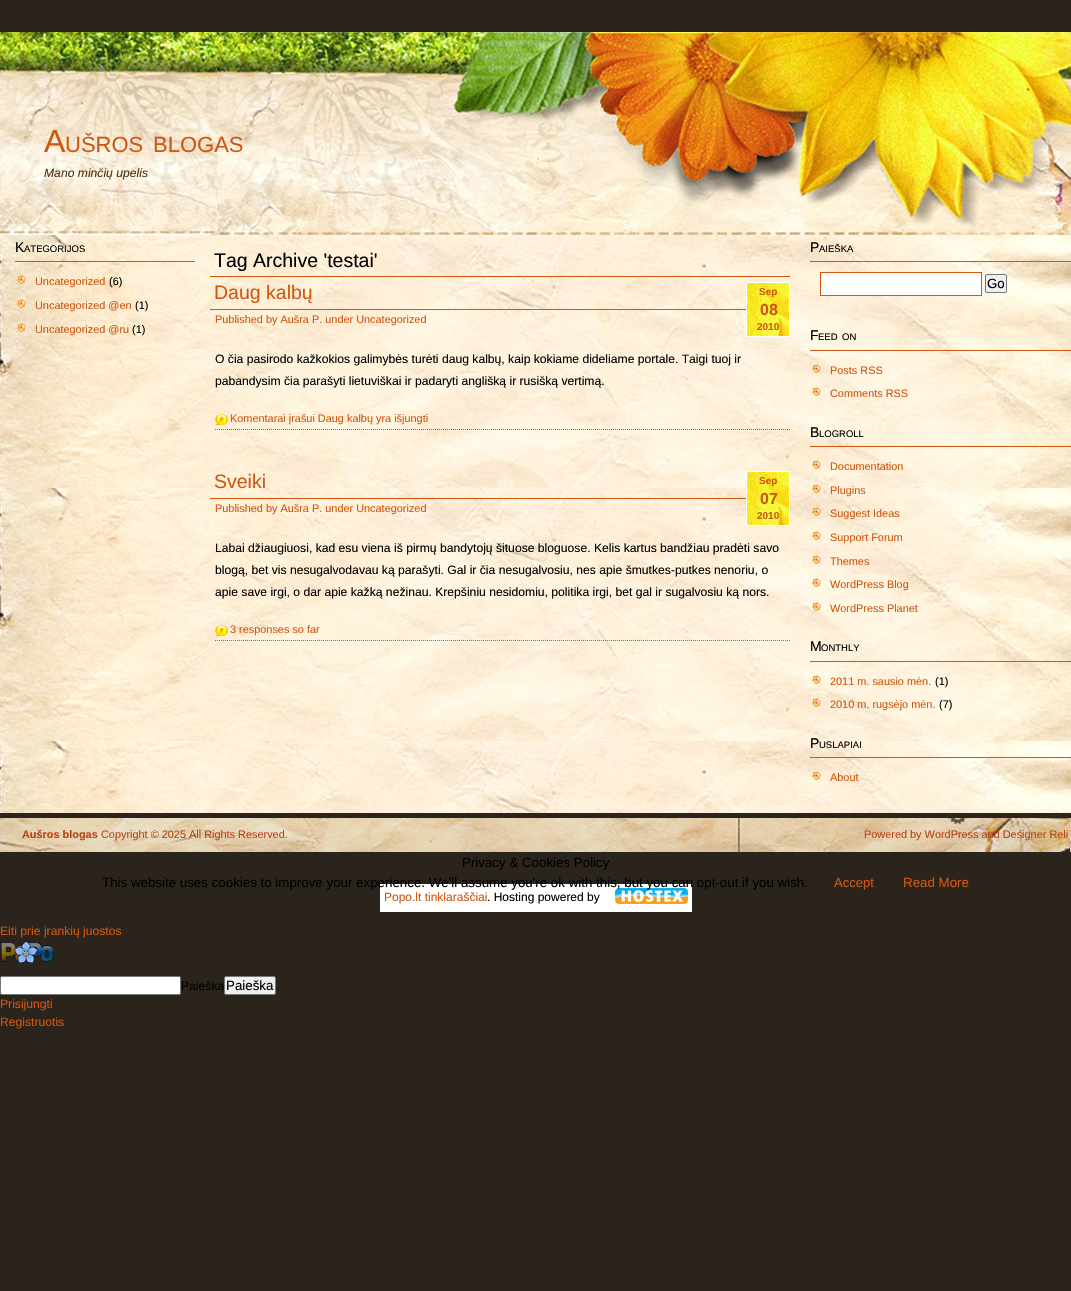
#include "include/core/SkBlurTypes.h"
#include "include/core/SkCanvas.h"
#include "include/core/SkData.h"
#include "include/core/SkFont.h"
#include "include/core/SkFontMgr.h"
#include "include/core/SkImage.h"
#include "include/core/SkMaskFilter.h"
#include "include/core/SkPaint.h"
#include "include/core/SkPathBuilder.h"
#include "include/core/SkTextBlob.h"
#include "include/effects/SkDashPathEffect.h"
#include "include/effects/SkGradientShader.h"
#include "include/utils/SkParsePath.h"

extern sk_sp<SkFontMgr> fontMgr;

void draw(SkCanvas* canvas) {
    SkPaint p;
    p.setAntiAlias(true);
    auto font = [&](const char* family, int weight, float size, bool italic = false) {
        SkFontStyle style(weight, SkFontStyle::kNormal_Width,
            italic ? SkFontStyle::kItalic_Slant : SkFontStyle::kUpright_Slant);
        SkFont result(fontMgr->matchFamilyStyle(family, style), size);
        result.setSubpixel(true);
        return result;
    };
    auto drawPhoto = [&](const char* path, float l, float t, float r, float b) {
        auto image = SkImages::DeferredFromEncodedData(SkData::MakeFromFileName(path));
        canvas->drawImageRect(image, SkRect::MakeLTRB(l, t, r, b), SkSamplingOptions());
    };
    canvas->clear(0xFF2B241C);
    drawPhoto("media/1.png", 0, 32, 1071, 235);
    auto font1 = font("Liberation Sans", 400, 32);
    p.setColor(0xFFD05710);
    canvas->drawString("A", 44, 152, font1, p);
    auto font2 = font("Liberation Sans", 400, 22);
    canvas->drawString("UŠROS", 65, 152, font2, p);
    canvas->drawString("BLOGAS", 153, 152, font2, p);
    auto font3 = font("Liberation Sans", 400, 12.15f, true);
    p.setColor(0xFF513414);
    canvas->drawString("Mano minčių upelis", 44, 177, font3, p);
    drawPhoto("media/2.png", 0, 235, 1071, 813);
    p.setColor(0xFFD05710);
    canvas->drawRect(SkRect::MakeLTRB(15, 261, 195, 262), p);
    auto font4 = font("Liberation Sans", 400, 14);
    p.setColor(0xFF000000);
    canvas->drawString("K", 15, 252, font4, p);
    auto font5 = font("Liberation Sans", 400, 9.5f);
    canvas->drawString("ATEGORIJOS", 24, 252, font5, p);
    drawPhoto("media/3.png", 17, 275, 26, 284);
    auto font6 = font("Liberation Sans", 400, 10.9f);
    p.setColor(0xFFD05710);
    canvas->drawString("Uncategorized", 35, 285, font6, p);
    p.setColor(0xFF000000);
    canvas->drawString("(6)", 109, 285, font6, p);
    drawPhoto("media/4.png", 17, 299, 26, 308);
    p.setColor(0xFFD05710);
    canvas->drawString("Uncategorized @en", 35, 309, font6, p);
    p.setColor(0xFF000000);
    canvas->drawString("(1)", 135, 309, font6, p);
    drawPhoto("media/5.png", 17, 323, 26, 332);
    p.setColor(0xFFD05710);
    canvas->drawString("Uncategorized @ru", 35, 333, font6, p);
    p.setColor(0xFF000000);
    canvas->drawString("(1)", 132, 333, font6, p);
    p.setColor(0xFFD05710);
    canvas->drawRect(SkRect::MakeLTRB(210, 276, 790, 277), p);
    auto font7 = font("Liberation Sans", 400, 19.5f);
    p.setColor(0xFF000000);
    canvas->drawString("Tag Archive 'testai'", 214, 267, font7, p);
    p.setColor(0xFFD05710);
    canvas->drawRect(SkRect::MakeLTRB(210, 309, 746, 310), p);
    canvas->drawString("Daug kalbų", 214, 299, font7, p);
    drawPhoto("media/6.png", 747, 283, 789, 336);
    p.setStyle(SkPaint::kStroke_Style);
    p.setStrokeWidth(1);
    p.setColor(0xFFFFFFFF);
    canvas->drawRect(SkRect::MakeLTRB(746.5f, 282.5f, 789.5f, 336.5f), p);
    auto font8 = font("Liberation Sans", 700, 10);
    p.setStyle(SkPaint::kFill_Style);
    p.setColor(0xFFD05710);
    canvas->drawString("Sep", 759, 295, font8, p);
    auto font9 = font("Liberation Sans", 700, 16);
    canvas->drawString("08", 760, 315, font9, p);
    canvas->drawString("2010", 757, 330, font8, p);
    canvas->drawString("Published by Aušra P. under Uncategorized", 215, 323, font6, p);
    auto font10 = font("Liberation Sans", 400, 12.15f);
    p.setColor(0xFF000000);
    canvas->drawString("O čia pasirodo kažkokios galimybės turėti daug kalbų, kaip kokiame dideliame portale. Taigi tuoj ir", 215, 363, font10, p);
    canvas->drawString("pabandysim čia parašyti lietuviškai ir padaryti anglišką ir rusišką vertimą.", 215, 385, font10, p);
    drawPhoto("media/7.png", 215, 414, 228, 425);
    p.setStyle(SkPaint::kStroke_Style);
    p.setColor(0xFFD05710);
    p.setPathEffect(SkDashPathEffect::Make({{1, 1}}, 0));
    canvas->drawPath(SkPathBuilder().moveTo(215, 429.5f).lineTo(790, 429.5f).detach(), p);
    p.setPathEffect(nullptr);
    p.setStyle(SkPaint::kFill_Style);
    canvas->drawString("Komentarai įrašui Daug kalbų yra išjungti", 230, 422, font6, p);
    canvas->drawRect(SkRect::MakeLTRB(210, 498, 746, 499), p);
    canvas->drawString("Sveiki", 214, 488, font7, p);
    drawPhoto("media/6.png", 747, 472, 789, 525);
    p.setStyle(SkPaint::kStroke_Style);
    p.setColor(0xFFFFFFFF);
    canvas->drawRect(SkRect::MakeLTRB(746.5f, 471.5f, 789.5f, 525.5f), p);
    p.setStyle(SkPaint::kFill_Style);
    p.setColor(0xFFD05710);
    canvas->drawString("Sep", 759, 484, font8, p);
    canvas->drawString("07", 760, 504, font9, p);
    canvas->drawString("2010", 757, 519, font8, p);
    canvas->drawString("Published by Aušra P. under Uncategorized", 215, 512, font6, p);
    p.setColor(0xFF000000);
    {
        const struct { const char* s; float x, y; } items[] = {
            {"Labai džiaugiuosi, kad esu viena iš pirmų bandytojų šituose bloguose. Kelis kartus bandžiau pradėti savo", 215, 552},
            {"blogą, bet vis nesugalvodavau ką parašyti. Gal ir čia nesugalvosiu, nes apie šmutkes-putkes nenoriu, o", 215, 574},
            {"apie save irgi, o dar apie kažką nežinau. Krepšiniu nesidomiu, politika irgi, bet gal ir sugalvosiu ką nors.", 215, 596},
        };
        for (auto [s, x, y] : items) {
            canvas->drawString(s, x, y, font10, p);
        }
    }
    drawPhoto("media/8.png", 215, 625, 228, 636);
    p.setStyle(SkPaint::kStroke_Style);
    p.setColor(0xFFD05710);
    p.setPathEffect(SkDashPathEffect::Make({{1, 1}}, 0));
    canvas->drawPath(SkPathBuilder().moveTo(215, 640.5f).lineTo(790, 640.5f).detach(), p);
    p.setPathEffect(nullptr);
    p.setStyle(SkPaint::kFill_Style);
    canvas->drawString("3 responses so far", 230, 633, font6, p);
    canvas->drawRect(SkRect::MakeLTRB(810, 261, 1071, 262), p);
    p.setColor(0xFF000000);
    canvas->drawString("P", 810, 252, font4, p);
    canvas->drawString("AIEŠKA", 819, 252, font5, p);
    p.setColor(0xFFFFFFFF);
    canvas->drawRect(SkRect::MakeLTRB(820.5f, 272.5f, 981.5f, 295.5f), p);
    p.setStyle(SkPaint::kStroke_Style);
    p.setColor(0xFFD05710);
    canvas->drawRect(SkRect::MakeLTRB(820.5f, 272.5f, 981.5f, 295.5f), p);
    p.setStyle(SkPaint::kFill_Style);
    p.setColor(0xFFEFEFEF);
    canvas->drawRoundRect(SkRect::MakeLTRB(985.5f, 274.5f, 1006.5f, 292.5f), 1.5f, 1.5f, p);
    p.setStyle(SkPaint::kStroke_Style);
    p.setColor(0xFF767676);
    canvas->drawRoundRect(SkRect::MakeLTRB(985.5f, 274.5f, 1006.5f, 292.5f), 1.5f, 1.5f, p);
    auto font11 = font("Liberation Sans", 400, 13.33f);
    p.setStyle(SkPaint::kFill_Style);
    p.setColor(0xFF000000);
    canvas->drawString("Go", 987, 288, font11, p);
    p.setColor(0xFFD05710);
    canvas->drawRect(SkRect::MakeLTRB(810, 350, 1071, 351), p);
    p.setColor(0xFF000000);
    canvas->drawString("F", 810, 340, font4, p);
    canvas->drawString("EED", 818, 340, font5, p);
    canvas->drawString("ON", 842, 340, font5, p);
    drawPhoto("media/9.png", 812, 364, 821, 373);
    p.setColor(0xFFD05710);
    canvas->drawString("Posts RSS", 830, 374, font6, p);
    drawPhoto("media/10.png", 812, 387, 821, 396);
    canvas->drawString("Comments RSS", 830, 397, font6, p);
    canvas->drawRect(SkRect::MakeLTRB(810, 446, 1071, 447), p);
    p.setColor(0xFF000000);
    canvas->drawString("B", 810, 437, font4, p);
    canvas->drawString("LOGROLL", 819, 437, font5, p);
    drawPhoto("media/11.png", 812, 460, 821, 469);
    p.setColor(0xFFD05710);
    canvas->drawString("Documentation", 830, 470, font6, p);
    drawPhoto("media/12.png", 812, 484, 821, 493);
    canvas->drawString("Plugins", 830, 494, font6, p);
    drawPhoto("media/13.png", 812, 507, 821, 516);
    canvas->drawString("Suggest Ideas", 830, 517, font6, p);
    drawPhoto("media/14.png", 812, 531, 821, 540);
    canvas->drawString("Support Forum", 830, 541, font6, p);
    drawPhoto("media/15.png", 812, 555, 821, 564);
    canvas->drawString("Themes", 830, 565, font6, p);
    drawPhoto("media/16.png", 812, 578, 821, 587);
    canvas->drawString("WordPress Blog", 830, 588, font6, p);
    drawPhoto("media/17.png", 812, 602, 821, 611);
    canvas->drawString("WordPress Planet", 830, 612, font6, p);
    canvas->drawRect(SkRect::MakeLTRB(810, 661, 1071, 662), p);
    p.setColor(0xFF000000);
    canvas->drawString("M", 810, 651, font4, p);
    canvas->drawString("ONTHLY", 821, 651, font5, p);
    drawPhoto("media/18.png", 812, 675, 821, 684);
    p.setColor(0xFFD05710);
    canvas->drawString("2011 m. sausio mėn.", 830, 685, font6, p);
    p.setColor(0xFF000000);
    canvas->drawString("(1)", 935, 685, font6, p);
    drawPhoto("media/19.png", 812, 698, 821, 707);
    p.setColor(0xFFD05710);
    canvas->drawString("2010 m. rugsėjo mėn.", 830, 708, font6, p);
    p.setColor(0xFF000000);
    canvas->drawString("(7)", 939, 708, font6, p);
    p.setColor(0xFFD05710);
    canvas->drawRect(SkRect::MakeLTRB(810, 757, 1071, 758), p);
    p.setColor(0xFF000000);
    canvas->drawString("P", 810, 748, font4, p);
    canvas->drawString("USLAPIAI", 819, 748, font5, p);
    drawPhoto("media/20.png", 812, 771, 821, 780);
    p.setColor(0xFFD05710);
    canvas->drawString("About", 830, 781, font6, p);
    drawPhoto("media/21.png", 0, 818, 1071, 852);
    auto font12 = font("Liberation Sans", 700, 10.9f);
    p.setColor(0xFFBA4114);
    canvas->drawString("Aušros blogas", 22, 838, font12, p);
    canvas->drawString("Copyright © 2025 All Rights Reserved.", 101, 838, font6, p);
    canvas->drawString("Powered by WordPress and Designer Reli", 864, 838, font6, p);
    p.setColor(0xFF000000);
    canvas->drawString("Privacy & Cookies Policy", 462, 867, font11, p);
    p.setColor(0xFFFFFFFF);
    canvas->drawRect(SkRect::MakeLTRB(380, 884, 692, 912), p);
    drawPhoto("media/22.png", 615, 888, 688, 904);
    p.setColor(0xFF000000);
    canvas->drawString("This website uses cookies to improve your experience. We'll assume you're ok with this, but you can opt-out if you wish.", 102, 887, font11, p);
    auto font13 = font("Liberation Sans", 400, 13);
    p.setColor(0xFFD05710);
    canvas->drawString("Accept", 834, 887, font13, p);
    canvas->drawString("Read More", 903, 887, font11, p);
    auto font14 = font("Liberation Sans", 400, 12);
    canvas->drawString("Popo.lt tinklaraščiai", 384, 901, font14, p);
    p.setColor(0xFF000000);
    canvas->drawString(". Hosting powered by", 487, 901, font14, p);
    p.setColor(0xFFD05710);
    canvas->drawString("Eiti prie įrankių juostos", 0, 935, font10, p);
    drawPhoto("media/23.png", 0, 941, 54, 963);
    p.setColor(0xFFFFFFFF);
    canvas->drawRoundRect(SkRect::MakeLTRB(0.5f, 976.5f, 180.5f, 994.5f), 1.5f, 1.5f, p);
    p.setStyle(SkPaint::kStroke_Style);
    p.setColor(0xFF767676);
    canvas->drawRoundRect(SkRect::MakeLTRB(0.5f, 976.5f, 180.5f, 994.5f), 1.5f, 1.5f, p);
    p.setStyle(SkPaint::kFill_Style);
    p.setColor(0xFF000000);
    canvas->drawString("Paieška", 181, 990, font10, p);
    p.setColor(0xFFEFEFEF);
    canvas->drawRoundRect(SkRect::MakeLTRB(224.5f, 976.5f, 275.5f, 994.5f), 1.5f, 1.5f, p);
    p.setStyle(SkPaint::kStroke_Style);
    p.setColor(0xFF767676);
    canvas->drawRoundRect(SkRect::MakeLTRB(224.5f, 976.5f, 275.5f, 994.5f), 1.5f, 1.5f, p);
    p.setStyle(SkPaint::kFill_Style);
    p.setColor(0xFF000000);
    canvas->drawString("Paieška", 226, 990, font11, p);
    p.setColor(0xFFD05710);
    canvas->drawString("Prisijungti", 0, 1008, font10, p);
    canvas->drawString("Registruotis", 0, 1026, font10, p);
}
